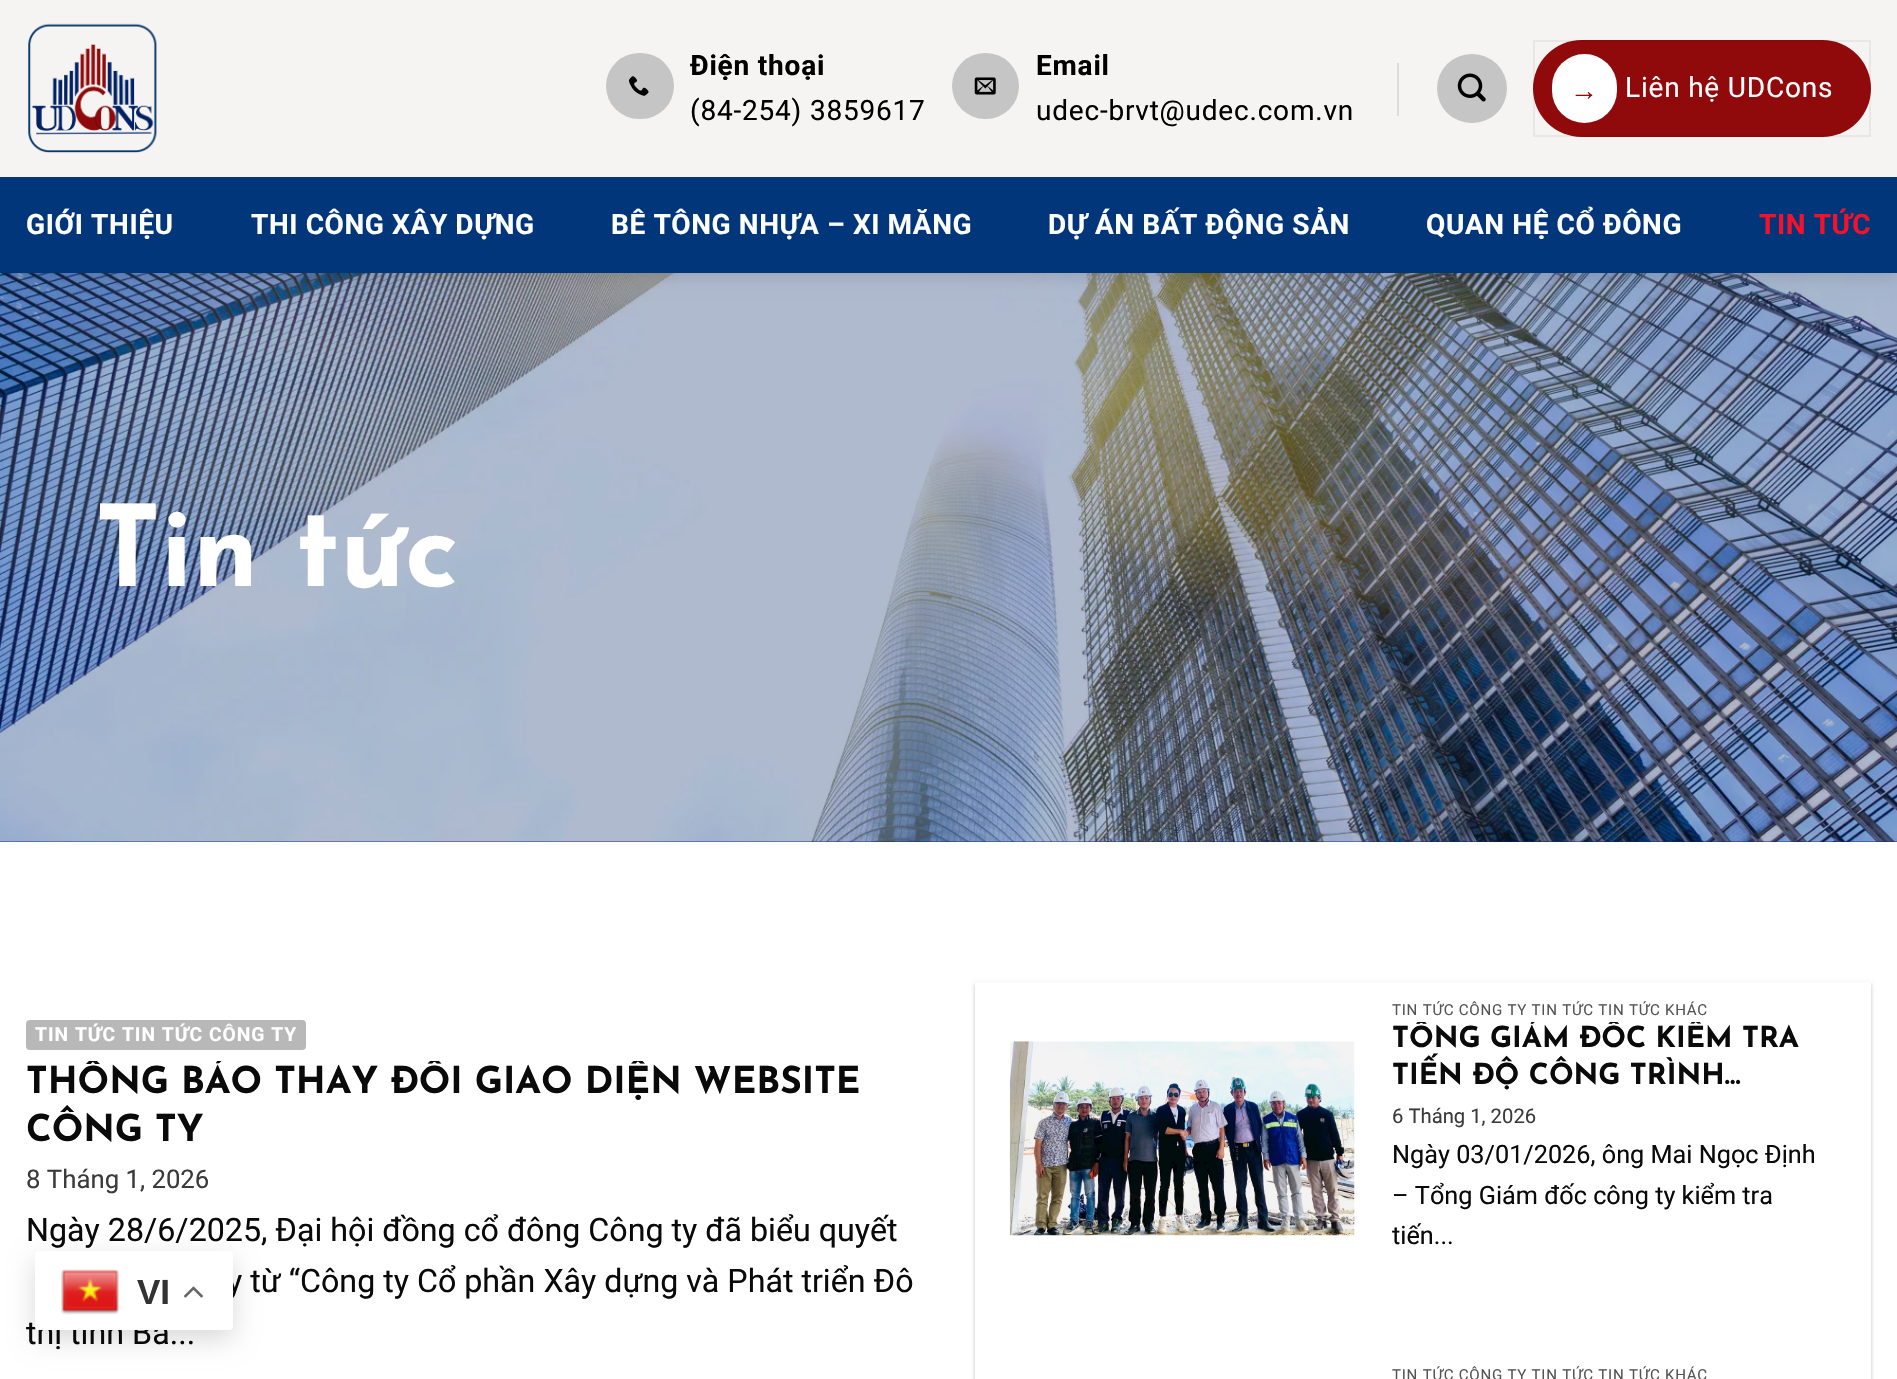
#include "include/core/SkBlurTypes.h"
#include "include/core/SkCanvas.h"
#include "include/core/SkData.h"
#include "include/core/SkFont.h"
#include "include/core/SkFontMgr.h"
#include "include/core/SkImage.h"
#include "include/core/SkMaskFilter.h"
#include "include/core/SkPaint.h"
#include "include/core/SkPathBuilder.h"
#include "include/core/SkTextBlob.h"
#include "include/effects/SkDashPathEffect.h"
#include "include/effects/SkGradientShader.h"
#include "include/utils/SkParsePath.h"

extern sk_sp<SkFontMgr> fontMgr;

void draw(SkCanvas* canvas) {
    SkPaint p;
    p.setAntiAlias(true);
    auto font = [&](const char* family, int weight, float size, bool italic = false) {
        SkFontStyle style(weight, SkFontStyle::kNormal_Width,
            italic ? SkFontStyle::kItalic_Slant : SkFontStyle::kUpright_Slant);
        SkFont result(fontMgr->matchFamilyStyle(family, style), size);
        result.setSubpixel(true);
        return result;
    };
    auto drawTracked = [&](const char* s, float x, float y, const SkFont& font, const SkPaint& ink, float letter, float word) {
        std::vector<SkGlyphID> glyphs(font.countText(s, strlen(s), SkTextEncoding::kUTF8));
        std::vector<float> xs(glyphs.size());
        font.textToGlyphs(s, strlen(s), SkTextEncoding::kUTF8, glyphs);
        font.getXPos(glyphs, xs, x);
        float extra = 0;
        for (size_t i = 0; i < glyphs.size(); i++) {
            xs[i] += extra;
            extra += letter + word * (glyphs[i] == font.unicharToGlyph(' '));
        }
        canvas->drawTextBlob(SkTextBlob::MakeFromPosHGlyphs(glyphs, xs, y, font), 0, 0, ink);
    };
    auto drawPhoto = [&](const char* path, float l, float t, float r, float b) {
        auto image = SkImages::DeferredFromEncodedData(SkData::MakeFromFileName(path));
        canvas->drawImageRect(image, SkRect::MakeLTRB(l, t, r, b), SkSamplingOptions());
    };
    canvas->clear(0xFFFFFFFF);
    p.setColor(0xFF092768);
    canvas->drawRect(SkRect::MakeLTRB(0, 841, 1897, 842), p);
    drawPhoto("media/5.png", 0, 273, 1897, 842);
    p.setColor(0x26000000);
    p.setMaskFilter(SkMaskFilter::MakeBlur(kNormal_SkBlurStyle, 9));
    canvas->drawRect(SkRect::MakeLTRB(2, 2, 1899, 275), p);
    p.setMaskFilter(nullptr);
    p.setColor(0xFFF5F4F2);
    canvas->drawRect(SkRect::MakeLTRB(0, 0, 1897, 177), p);
    drawPhoto("media/1.png", 28, 23, 157, 153);
    p.setColor(0xFFC5C5C5);
    canvas->drawRoundRect(SkRect::MakeLTRB(606, 53, 674, 119), 33, 33, p);
    drawPhoto("media/2.png", 628, 76, 649, 96);
    auto font1 = font("Roboto", 700, 28);
    p.setColor(0xFF000000);
    drawTracked("Điện thoại", 690, 75, font1, p, 0.8f, 0);
    auto font2 = font("Roboto", 400, 28);
    drawTracked("(84-254) 3859617", 690, 120, font2, p, 0.8f, 0);
    p.setColor(0xFFC5C5C5);
    canvas->drawRoundRect(SkRect::MakeLTRB(952, 53, 1019, 119), 33, 33, p);
    drawPhoto("media/3.png", 974, 77, 996, 95);
    p.setColor(0xFF000000);
    drawTracked("Email", 1036, 75, font1, p, 0.8f, 0);
    drawTracked("udec-brvt@udec.com.vn", 1036, 120, font2, p, 0.8f, 0);
    p.setColor(0xFFDDDCDA);
    canvas->drawRect(SkRect::MakeLTRB(1397, 63, 1399, 116), p);
    p.setColor(0xFFC5C5C5);
    canvas->drawRoundRect(SkRect::MakeLTRB(1437, 54, 1507, 123), 34.5f, 34.5f, p);
    drawPhoto("media/4.png", 1457, 73, 1486, 102);
    p.setColor(0xFF900A0B);
    canvas->drawRoundRect(SkRect::MakeLTRB(1533, 40, 1871, 137), 48.5f, 48.5f, p);
    p.setStyle(SkPaint::kStroke_Style);
    p.setStrokeWidth(2);
    p.setColor(0x0D000000);
    canvas->drawRect(SkRect::MakeLTRB(1534, 41, 1870, 136), p);
    p.setStyle(SkPaint::kFill_Style);
    p.setColor(0xFFFFFFFF);
    canvas->drawRoundRect(SkRect::MakeLTRB(1552, 54, 1617, 123), 32.5f, 32.5f, p);
    auto font3 = font("Liberation Sans", 400, 28);
    p.setColor(0xFF900A0B);
    drawTracked("→", 1570, 100, font3, p, 0.8f, 0);
    p.setColor(0xFFFFFFFF);
    drawTracked("Liên hệ UDCons", 1625, 97, font2, p, 0.8f, 0);
    p.setColor(0xFF01377A);
    canvas->drawRect(SkRect::MakeLTRB(0, 177, 1897, 273), p);
    p.setColor(0xFFFFFFFF);
    {
        const struct { const char* s; float x, y; } items[] = {
            {"GIỚI THIỆU", 26, 234},
            {"THI CÔNG XÂY DỰNG", 251, 234},
            {"BÊ TÔNG NHỰA – XI MĂNG", 611, 234},
            {"DỰ ÁN BẤT ĐỘNG SẢN", 1048, 234},
            {"QUAN HỆ CỔ ĐÔNG", 1426, 234},
        };
        for (auto [s, x, y] : items) {
            drawTracked(s, x, y, font1, p, 0.6f, 0);
        }
    }
    p.setColor(0xFFF5112B);
    drawTracked("TIN TỨC", 1759, 234, font1, p, 0.6f, 0);
    auto font4 = font("Josefin Sans", 700, 112);
    p.setColor(0xFFFFFFFF);
    canvas->drawString("Tin tức", 95, 586, font4, p);
    p.setColor(0xFFB8B8B8);
    canvas->drawRoundRect(SkRect::MakeLTRB(26, 1020, 306, 1050), 4, 4, p);
    auto font5 = font("Roboto", 700, 19.25f);
    p.setColor(0xFFFFFFFF);
    drawTracked("TIN TỨC TIN TỨC CÔNG TY", 35, 1041, font5, p, 1, 0);
    canvas->save();
    canvas->clipRect(SkRect::MakeLTRB(26, 1061, 922, 1157));
    auto font6 = font("Josefin Sans", 700, 37);
    p.setColor(0xFF0A0A0A);
    canvas->drawString("THÔNG BÁO THAY ĐỔI GIAO DIỆN WEBSITE", 26, 1093, font6, p);
    canvas->restore();
    canvas->drawString("CÔNG TY", 26, 1141, font6, p);
    auto font7 = font("Roboto", 400, 25.75f);
    p.setColor(0xFF3B3B3B);
    canvas->drawString("8 Tháng 1, 2026", 26, 1188, font7, p);
    auto font8 = font("Roboto", 400, 32.2f);
    p.setColor(0xFF0A0A0A);
    {
        const struct { const char* s; float x, y; } items[] = {
            {"Ngày 28/6/2025, Đại hội đồng cổ đông Công ty đã biểu quyết", 26, 1241},
            {"y từ “Công ty Cổ phần Xây dựng và Phát triển Đô", 227, 1292},
            {"thị tỉnh Bà...", 26, 1344},
        };
        for (auto [s, x, y] : items) {
            canvas->drawString(s, x, y, font8, p);
        }
    }
    canvas->save();
    canvas->clipPath(SkPathBuilder(SkPathFillType::kEvenOdd).moveTo(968, 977).lineTo(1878, 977).lineTo(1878, 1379).lineTo(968, 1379).close().moveTo(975, 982).lineTo(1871, 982).lineTo(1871, 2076).lineTo(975, 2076).close().detach(), true);
    p.setColor(0x3D000000);
    p.setMaskFilter(SkMaskFilter::MakeBlur(kNormal_SkBlurStyle, 2));
    canvas->drawRect(SkRect::MakeLTRB(975, 984, 1871, 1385), p);
    p.setMaskFilter(nullptr);
    canvas->restore();
    drawPhoto("media/6.png", 1009, 1041, 1355, 1236);
    auto font9 = font("Roboto", 400, 15.1f);
    p.setColor(0xFF545454);
    drawTracked("TIN TỨC CÔNG TY TIN TỨC TIN TỨC KHÁC", 1392, 1015, font9, p, 0.75f, 0);
    canvas->save();
    canvas->clipRect(SkRect::MakeLTRB(1391, 1022, 1832, 1097));
    auto font10 = font("Josefin Sans", 700, 29);
    p.setColor(0xFF0A0A0A);
    canvas->drawString("TỔNG GIÁM ĐỐC KIỂM TRA", 1392, 1047, font10, p);
    canvas->restore();
    canvas->drawString("TIẾN ĐỘ CÔNG TRÌNH…", 1392, 1084, font10, p);
    auto font11 = font("Roboto", 400, 20.25f);
    p.setColor(0xFF3B3B3B);
    canvas->drawString("6 Tháng 1, 2026", 1392, 1123, font11, p);
    auto font12 = font("Roboto", 400, 25.25f);
    p.setColor(0xFF0A0A0A);
    {
        const struct { const char* s; float x, y; } items[] = {
            {"Ngày 03/01/2026, ông Mai Ngọc Định", 1392, 1163},
            {"– Tổng Giám đốc công ty kiểm tra", 1392, 1204},
            {"tiến...", 1392, 1244},
        };
        for (auto [s, x, y] : items) {
            canvas->drawString(s, x, y, font12, p);
        }
    }
    p.setColor(0xFF545454);
    drawTracked("TIN TỨC CÔNG TY TIN TỨC TIN TỨC KHÁC", 1392, 1380, font9, p, 0.75f, 0);
    p.setColor(0x26000000);
    p.setMaskFilter(SkMaskFilter::MakeBlur(kNormal_SkBlurStyle, 13));
    canvas->drawRoundRect(SkRect::MakeLTRB(35, 1260, 233, 1339), 4, 4, p);
    p.setMaskFilter(nullptr);
    p.setColor(0xFFFFFFFF);
    canvas->drawRoundRect(SkRect::MakeLTRB(35, 1251, 233, 1330), 4, 4, p);
    drawPhoto("media/7.png", 61, 1269, 119, 1315);
    auto font13 = font("Liberation Sans", 700, 35);
    p.setColor(0xFF333333);
    canvas->drawString("VI", 137, 1304, font13, p);
    drawPhoto("media/8.png", 184, 1286, 203, 1298);
}
